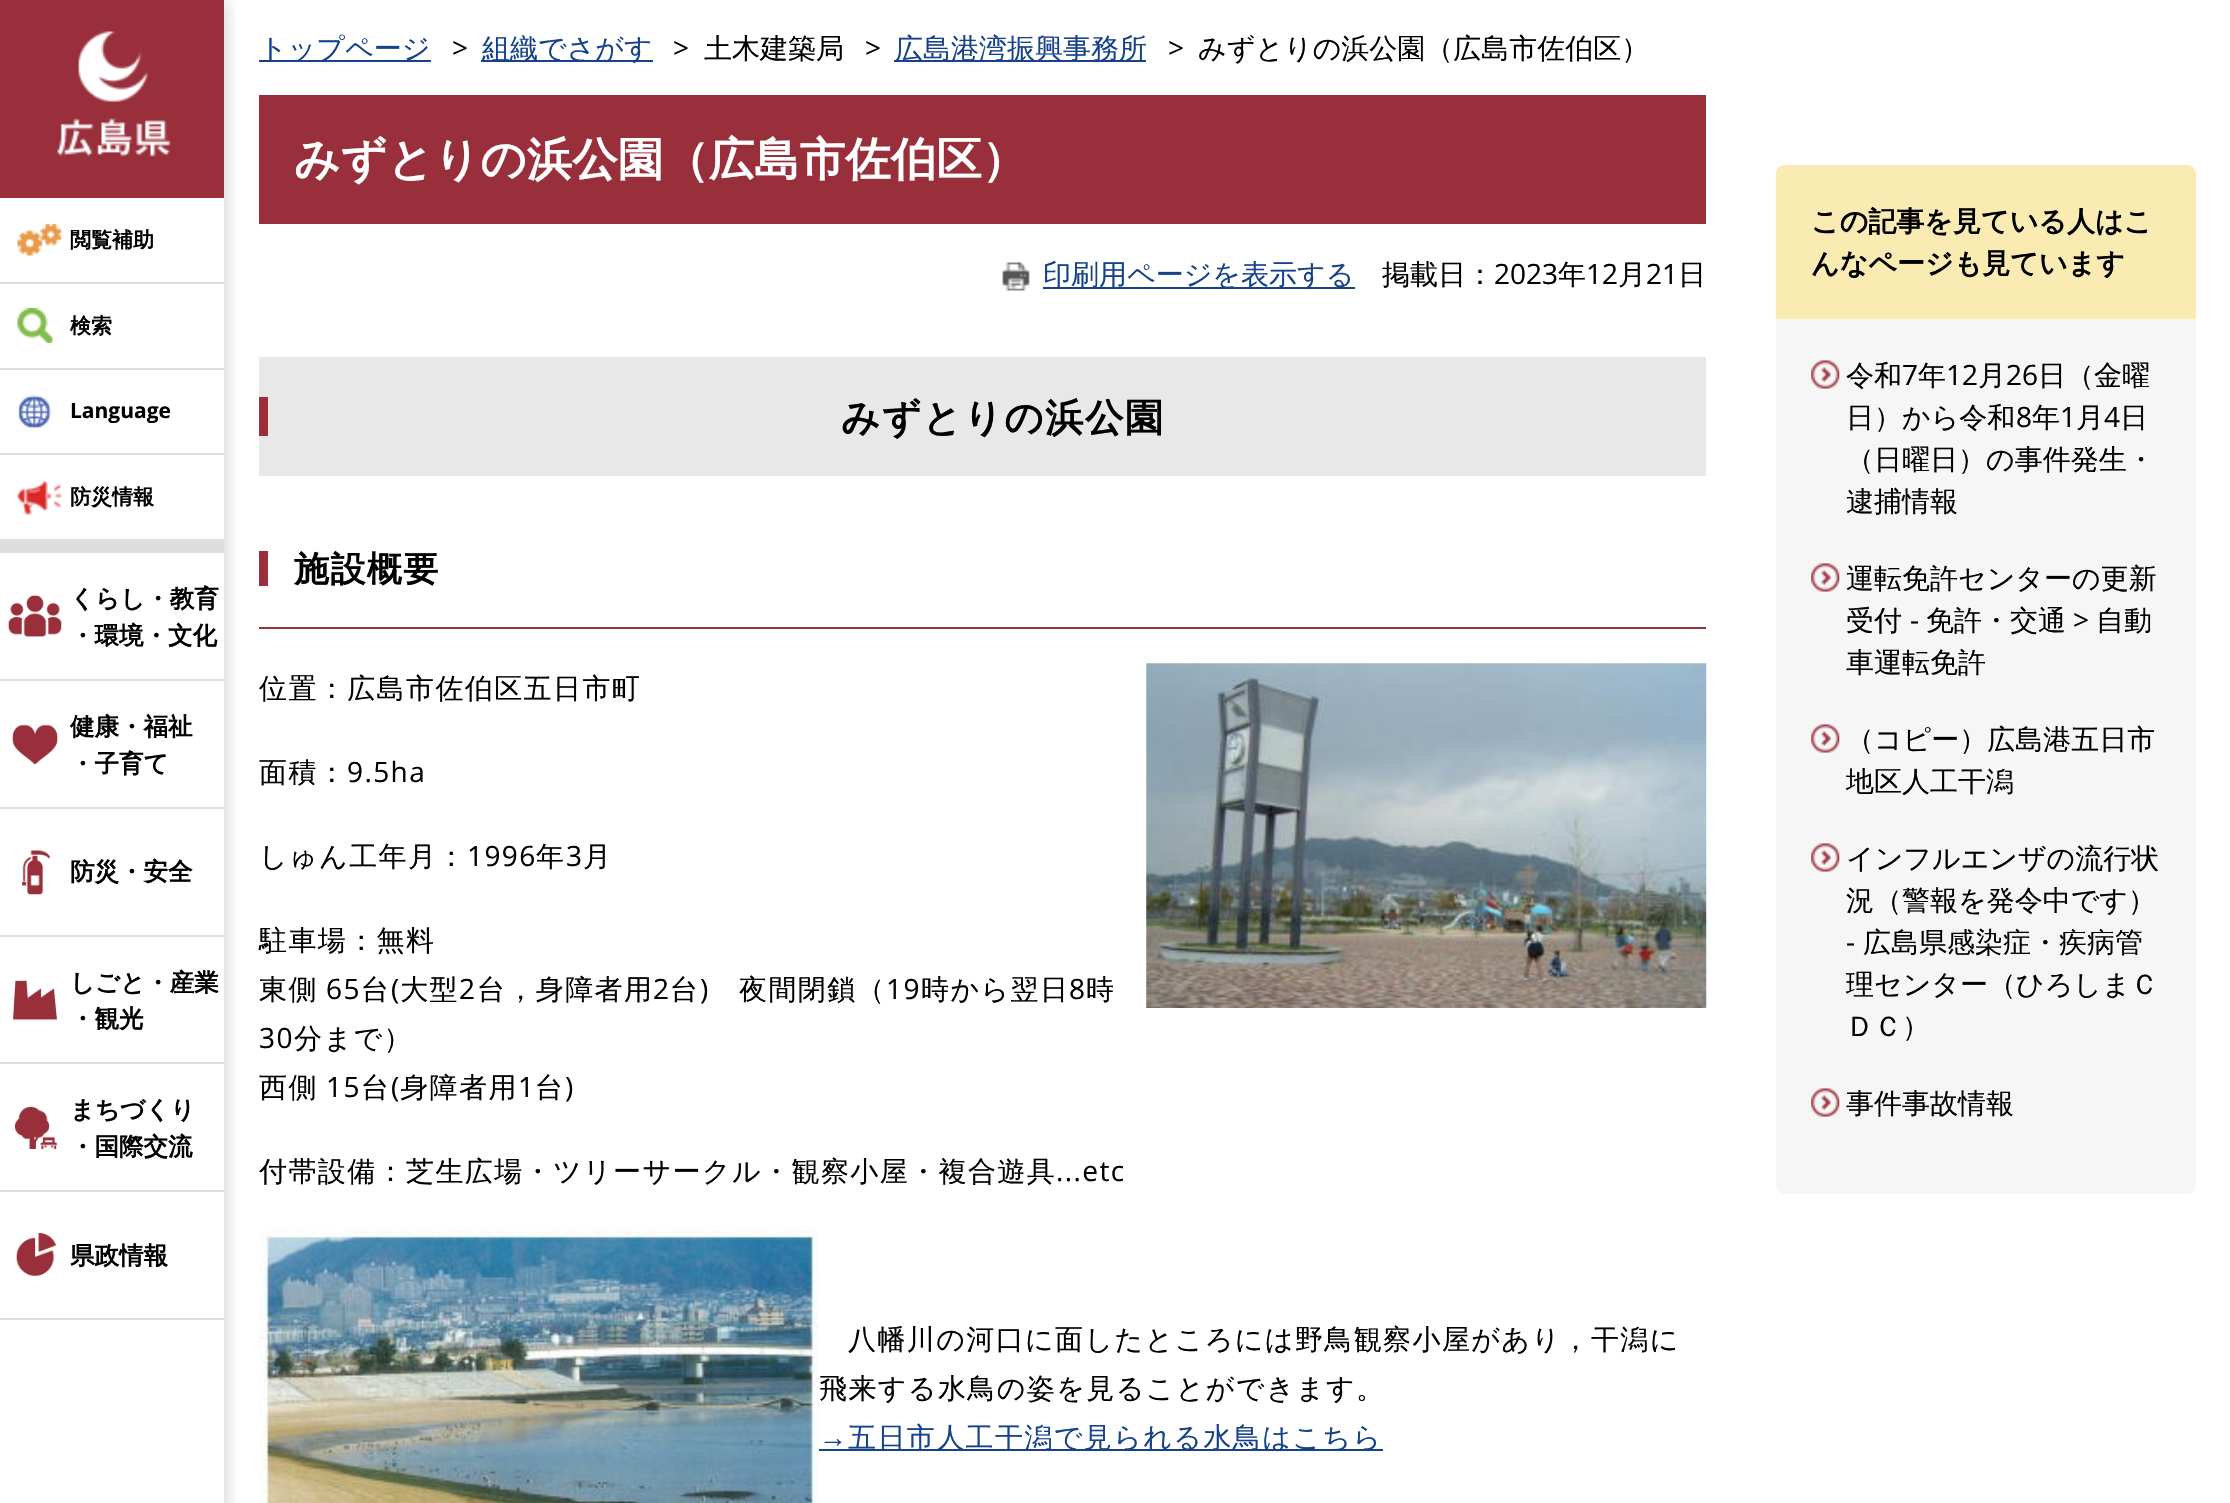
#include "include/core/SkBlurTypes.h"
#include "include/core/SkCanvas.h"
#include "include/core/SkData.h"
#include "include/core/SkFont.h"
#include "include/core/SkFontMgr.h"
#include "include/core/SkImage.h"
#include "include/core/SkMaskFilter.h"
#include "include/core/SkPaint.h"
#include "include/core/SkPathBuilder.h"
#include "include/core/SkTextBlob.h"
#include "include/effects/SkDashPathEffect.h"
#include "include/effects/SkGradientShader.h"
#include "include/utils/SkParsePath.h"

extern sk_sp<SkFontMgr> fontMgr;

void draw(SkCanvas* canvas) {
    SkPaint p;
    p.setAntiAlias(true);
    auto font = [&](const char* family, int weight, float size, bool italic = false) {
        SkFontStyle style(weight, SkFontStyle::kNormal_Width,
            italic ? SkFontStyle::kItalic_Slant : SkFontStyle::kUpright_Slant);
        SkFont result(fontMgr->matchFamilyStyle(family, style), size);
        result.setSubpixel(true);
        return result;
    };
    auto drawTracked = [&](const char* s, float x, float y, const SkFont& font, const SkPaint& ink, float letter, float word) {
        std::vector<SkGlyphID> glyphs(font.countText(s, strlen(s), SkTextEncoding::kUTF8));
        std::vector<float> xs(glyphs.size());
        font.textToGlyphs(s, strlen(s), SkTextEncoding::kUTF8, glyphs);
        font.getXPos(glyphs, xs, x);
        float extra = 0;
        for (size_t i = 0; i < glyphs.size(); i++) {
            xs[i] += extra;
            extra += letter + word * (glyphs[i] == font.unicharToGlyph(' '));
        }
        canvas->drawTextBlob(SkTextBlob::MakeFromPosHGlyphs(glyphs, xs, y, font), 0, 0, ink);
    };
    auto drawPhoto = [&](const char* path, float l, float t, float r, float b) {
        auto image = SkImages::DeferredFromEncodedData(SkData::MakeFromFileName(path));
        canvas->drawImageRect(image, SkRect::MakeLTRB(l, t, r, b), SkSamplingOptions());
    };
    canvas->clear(0xFFFFFFFF);
    canvas->save();
    canvas->clipRect(SkRect::MakeLTRB(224, 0, 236, 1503));
    p.setColor(0x33000000);
    p.setMaskFilter(SkMaskFilter::MakeBlur(kNormal_SkBlurStyle, 9));
    canvas->drawRect(SkRect::MakeLTRB(0, 0, 224, 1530), p);
    p.setMaskFilter(nullptr);
    canvas->restore();
    p.setColor(0xFF992F3B);
    canvas->drawRect(SkRect::MakeLTRB(0, 0, 224, 198), p);
    drawPhoto("media/1.png", 56, 31, 171, 157);
    drawPhoto("media/2.png", 17, 224, 62, 256);
    auto font1 = font("WenQuanYi Zen Hei", 700, 21);
    p.setColor(0xFF000000);
    canvas->drawString("閲覧補助", 70, 247, font1, p);
    drawPhoto("media/3.png", 17, 308, 53, 343);
    p.setColor(0xFFDDDDDD);
    canvas->drawRect(SkRect::MakeLTRB(0, 282, 224, 284), p);
    p.setColor(0xFF000000);
    canvas->drawString("検索", 70, 333, font1, p);
    drawPhoto("media/4.png", 17, 395, 51, 429);
    p.setColor(0xFFDDDDDD);
    canvas->drawRect(SkRect::MakeLTRB(0, 368, 224, 370), p);
    auto font2 = font("Open Sans", 700, 21);
    p.setColor(0xFF000000);
    canvas->drawString("Language", 70, 418, font2, p);
    drawPhoto("media/5.png", 17, 480, 62, 515);
    p.setColor(0xFFDDDDDD);
    canvas->drawRect(SkRect::MakeLTRB(0, 453, 224, 455), p);
    p.setColor(0xFF000000);
    canvas->drawString("防災情報", 70, 504, font1, p);
    p.setColor(0xFFDDDDDD);
    canvas->drawRect(SkRect::MakeLTRB(0, 539, 224, 553), p);
    drawPhoto("media/6.png", 8, 595, 62, 637);
    canvas->drawRect(SkRect::MakeLTRB(0, 679, 224, 681), p);
    auto font3 = font("WenQuanYi Zen Hei", 700, 24.5f);
    p.setColor(0xFF000000);
    canvas->drawString("くらし・教育", 70, 607, font3, p);
    canvas->drawString("・環境・文化", 70, 644, font3, p);
    drawPhoto("media/7.png", 12, 724, 58, 765);
    p.setColor(0xFFDDDDDD);
    canvas->drawRect(SkRect::MakeLTRB(0, 807, 224, 809), p);
    p.setColor(0xFF000000);
    canvas->drawString("健康・福祉", 70, 735, font3, p);
    canvas->drawString("・子育て", 70, 772, font3, p);
    drawPhoto("media/8.png", 21, 850, 50, 895);
    p.setColor(0xFFDDDDDD);
    canvas->drawRect(SkRect::MakeLTRB(0, 935, 224, 937), p);
    p.setColor(0xFF000000);
    canvas->drawString("防災・安全", 70, 880, font3, p);
    drawPhoto("media/9.png", 13, 980, 57, 1021);
    p.setColor(0xFFDDDDDD);
    canvas->drawRect(SkRect::MakeLTRB(0, 1062, 224, 1064), p);
    p.setColor(0xFF000000);
    canvas->drawString("しごと・産業", 70, 991, font3, p);
    canvas->drawString("・観光", 70, 1027, font3, p);
    drawPhoto("media/10.png", 14, 1106, 57, 1149);
    p.setColor(0xFFDDDDDD);
    canvas->drawRect(SkRect::MakeLTRB(0, 1190, 224, 1192), p);
    p.setColor(0xFF000000);
    canvas->drawString("まちづくり", 70, 1118, font3, p);
    canvas->drawString("・国際交流", 70, 1155, font3, p);
    drawPhoto("media/11.png", 16, 1233, 56, 1276);
    p.setColor(0xFFDDDDDD);
    canvas->drawRect(SkRect::MakeLTRB(0, 1318, 224, 1320), p);
    p.setColor(0xFF000000);
    canvas->drawString("県政情報", 70, 1264, font3, p);
    p.setColor(0xFF16428B);
    canvas->drawRect(SkRect::MakeLTRB(259, 60, 431, 62), p);
    auto font4 = font("WenQuanYi Zen Hei", 500, 28);
    canvas->drawString("トップページ", 259, 58, font4, p);
    auto font5 = font("Open Sans", 400, 28);
    p.setColor(0xFF000000);
    canvas->drawString(">", 452, 58, font5, p);
    p.setColor(0xFF16428B);
    canvas->drawRect(SkRect::MakeLTRB(481, 60, 653, 62), p);
    canvas->drawString("組織でさがす", 482, 58, font4, p);
    p.setColor(0xFF000000);
    canvas->drawString(">", 673, 58, font5, p);
    canvas->drawString("土木建築局", 704, 58, font4, p);
    canvas->drawString(">", 865, 58, font5, p);
    p.setColor(0xFF16428B);
    canvas->drawRect(SkRect::MakeLTRB(894, 60, 1146, 62), p);
    canvas->drawString("広島港湾振興事務所", 895, 58, font4, p);
    p.setColor(0xFF000000);
    canvas->drawString(">", 1168, 58, font5, p);
    canvas->drawString("みずとりの浜公園（広島市佐伯区）", 1198, 58, font4, p);
    p.setColor(0xFF992F3B);
    canvas->drawRect(SkRect::MakeLTRB(259, 95, 1706, 224), p);
    auto font6 = font("WenQuanYi Zen Hei", 700, 45.5f);
    p.setColor(0xFFFFFFFF);
    canvas->drawString("みずとりの浜公園（広島市佐伯区）", 294, 175, font6, p);
    drawPhoto("media/12.png", 1002, 262, 1030, 291);
    p.setColor(0xFF16428B);
    canvas->drawRect(SkRect::MakeLTRB(1043, 287, 1355, 289), p);
    canvas->drawString("印刷用ページを表示する", 1043, 284, font4, p);
    p.setColor(0xFF000000);
    canvas->drawString("掲載日：", 1382, 284, font4, p);
    canvas->drawString("2023", 1494, 284, font5, p);
    canvas->drawString("年", 1558, 284, font4, p);
    canvas->drawString("12", 1586, 284, font5, p);
    canvas->drawString("月", 1618, 284, font4, p);
    canvas->drawString("21", 1646, 284, font5, p);
    canvas->drawString("日", 1678, 284, font4, p);
    p.setColor(0xFFE8E8E8);
    canvas->drawRect(SkRect::MakeLTRB(259, 357, 1706, 476), p);
    p.setColor(0xFF992F3B);
    canvas->drawRect(SkRect::MakeLTRB(259, 397, 268, 436), p);
    auto font7 = font("WenQuanYi Zen Hei", 700, 38.5f);
    p.setColor(0xFF000000);
    drawTracked("みずとりの浜公園", 841, 431, font7, p, 1.4f, 0);
    p.setColor(0xFF992F3B);
    canvas->drawRect(SkRect::MakeLTRB(259, 627, 1706, 629), p);
    canvas->drawRect(SkRect::MakeLTRB(259, 551, 268, 586), p);
    auto font8 = font("WenQuanYi Zen Hei", 700, 35);
    p.setColor(0xFF000000);
    drawTracked("施設概要", 294, 581, font8, p, 1.4f, 0);
    drawTracked("位置：広島市佐伯区五日市町", 259, 698, font4, p, 1.4f, 0);
    drawPhoto("media/13.png", 1146, 663, 1707, 1008);
    drawTracked("面積：", 259, 782, font4, p, 1.4f, 0);
    drawTracked("9.5ha", 347, 782, font5, p, 1.4f, 0);
    drawTracked("しゅん工年月：", 259, 866, font4, p, 1.4f, 0);
    drawTracked("1996", 467, 866, font5, p, 1.4f, 0);
    drawTracked("年", 536, 866, font4, p, 1.4f, 0);
    drawTracked("3", 566, 866, font5, p, 1.4f, 0);
    {
        const struct { const char* s; float x, y; } items[] = {
            {"月", 583, 866},
            {"駐車場：無料", 259, 950},
            {"東側", 259, 999},
        };
        for (auto [s, x, y] : items) {
            drawTracked(s, x, y, font4, p, 1.4f, 0);
        }
    }
    drawTracked("65", 326, 999, font5, p, 1.4f, 0);
    drawTracked("台 大型", 361, 999, font4, p, 1.4f, 0);
    drawTracked("2", 459, 999, font5, p, 1.4f, 0);
    drawTracked("台，身障者用", 477, 999, font4, p, 1.4f, 0);
    drawTracked("2", 653, 999, font5, p, 1.4f, 0);
    drawTracked("台", 670, 999, font4, p, 1.4f, 0);
    drawTracked("夜間閉鎖（", 739, 999, font4, p, 1.4f, 0);
    drawTracked("19", 886, 999, font5, p, 1.4f, 0);
    drawTracked("時から翌日", 921, 999, font4, p, 1.4f, 0);
    drawTracked("8", 1069, 999, font5, p, 1.4f, 0);
    drawTracked("時", 1086, 999, font4, p, 1.4f, 0);
    {
        const struct { const char* s; float x, y; } items[] = {
            {"(", 391, 999},
            {")", 700, 999},
            {"30", 259, 1048},
        };
        for (auto [s, x, y] : items) {
            drawTracked(s, x, y, font5, p, 1.4f, 0);
        }
    }
    drawTracked("分まで）", 294, 1048, font4, p, 1.4f, 0);
    drawTracked("西側", 259, 1097, font4, p, 1.4f, 0);
    drawTracked("15", 326, 1097, font5, p, 1.4f, 0);
    drawTracked("台 身障者用", 361, 1097, font4, p, 1.4f, 0);
    drawTracked("台", 535, 1097, font4, p, 1.4f, 0);
    {
        const struct { const char* s; float x, y; } items[] = {
            {"(", 391, 1097},
            {"1", 518, 1097},
            {")", 565, 1097},
        };
        for (auto [s, x, y] : items) {
            drawTracked(s, x, y, font5, p, 1.4f, 0);
        }
    }
    drawTracked("付帯設備：芝生広場・ツリーサークル・観察小屋・複合遊具", 259, 1181, font4, p, 1.4f, 0);
    drawTracked("...etc", 1056, 1181, font5, p, 1.4f, 0);
    drawPhoto("media/14.png", 259, 1230, 819, 1503);
    drawTracked("八幡川の河口に面したところには野鳥観察小屋があり，干潟に", 848, 1349, font4, p, 1.4f, 0);
    drawTracked("飛来する水鳥の姿を見ることができます。", 819, 1398, font4, p, 1.4f, 0);
    auto font9 = font("Liberation Sans", 400, 28);
    p.setColor(0xFF16428B);
    drawTracked("→", 819, 1447, font9, p, 1.4f, 0);
    canvas->drawRect(SkRect::MakeLTRB(819, 1449, 1383, 1451), p);
    drawTracked("五日市人工干潟で見られる水鳥はこちら", 848, 1447, font4, p, 1.4f, 0);
    p.setColor(0xFFF6F6F6);
    canvas->drawRoundRect(SkRect::MakeLTRB(1776, 165, 2196, 1194), 9, 9, p);
    p.setColor(0xFFF9EBB2);
    canvas->drawPath(SkPathBuilder().moveTo(1785, 165).lineTo(2187, 165).cubicTo(2192, 165, 2196, 169, 2196, 174).lineTo(2196, 319).lineTo(1776, 319).lineTo(1776, 174).cubicTo(1776, 169, 1780, 165, 1785, 165).close().detach(), p);
    auto font10 = font("WenQuanYi Zen Hei", 700, 28);
    p.setColor(0xFF000000);
    canvas->drawString("この記事を見ている人はこ", 1811, 231, font10, p);
    canvas->drawString("んなページも見ています", 1811, 273, font10, p);
    drawPhoto("media/15.png", 1811, 360, 1840, 389);
    canvas->drawString("令和", 1846, 385, font4, p);
    canvas->drawString("7", 1902, 385, font5, p);
    canvas->drawString("年", 1918, 385, font4, p);
    canvas->drawString("12", 1946, 385, font5, p);
    canvas->drawString("月", 1978, 385, font4, p);
    canvas->drawString("26", 2006, 385, font5, p);
    canvas->drawString("日（金曜", 2038, 385, font4, p);
    canvas->drawString("日）から令和", 1846, 427, font4, p);
    canvas->drawString("8", 2016, 427, font5, p);
    canvas->drawString("年", 2032, 427, font4, p);
    canvas->drawString("1", 2060, 427, font5, p);
    canvas->drawString("月", 2076, 427, font4, p);
    canvas->drawString("4", 2104, 427, font5, p);
    {
        const struct { const char* s; float x, y; } items[] = {
            {"日", 2120, 427},
            {"（日曜日）の事件発生・", 1846, 469},
            {"逮捕情報", 1846, 511},
        };
        for (auto [s, x, y] : items) {
            canvas->drawString(s, x, y, font4, p);
        }
    }
    drawPhoto("media/15.png", 1811, 563, 1840, 592);
    canvas->drawString("運転免許センターの更新", 1846, 588, font4, p);
    canvas->drawString("受付", 1846, 630, font4, p);
    canvas->drawString("-", 1910, 630, font5, p);
    canvas->drawString("免許・交通", 1926, 630, font4, p);
    canvas->drawString(">", 2073, 630, font5, p);
    canvas->drawString("自動", 2096, 630, font4, p);
    canvas->drawString("車運転免許", 1846, 672, font4, p);
    drawPhoto("media/15.png", 1811, 724, 1840, 753);
    canvas->drawString("（コピー）広島港五日市", 1846, 749, font4, p);
    canvas->drawString("地区人工干潟", 1846, 791, font4, p);
    drawPhoto("media/15.png", 1811, 843, 1840, 872);
    canvas->drawString("インフルエンザの流行状", 1846, 868, font4, p);
    canvas->drawString("況（警報を発令中です）", 1846, 910, font4, p);
    canvas->drawString("-", 1846, 952, font5, p);
    {
        const struct { const char* s; float x, y; } items[] = {
            {"広島県感染症・疾病管", 1863, 952},
            {"理センター（ひろしまＣ", 1846, 994},
            {"ＤＣ）", 1846, 1036},
        };
        for (auto [s, x, y] : items) {
            canvas->drawString(s, x, y, font4, p);
        }
    }
    drawPhoto("media/15.png", 1811, 1088, 1840, 1117);
    canvas->drawString("事件事故情報", 1846, 1113, font4, p);
}
